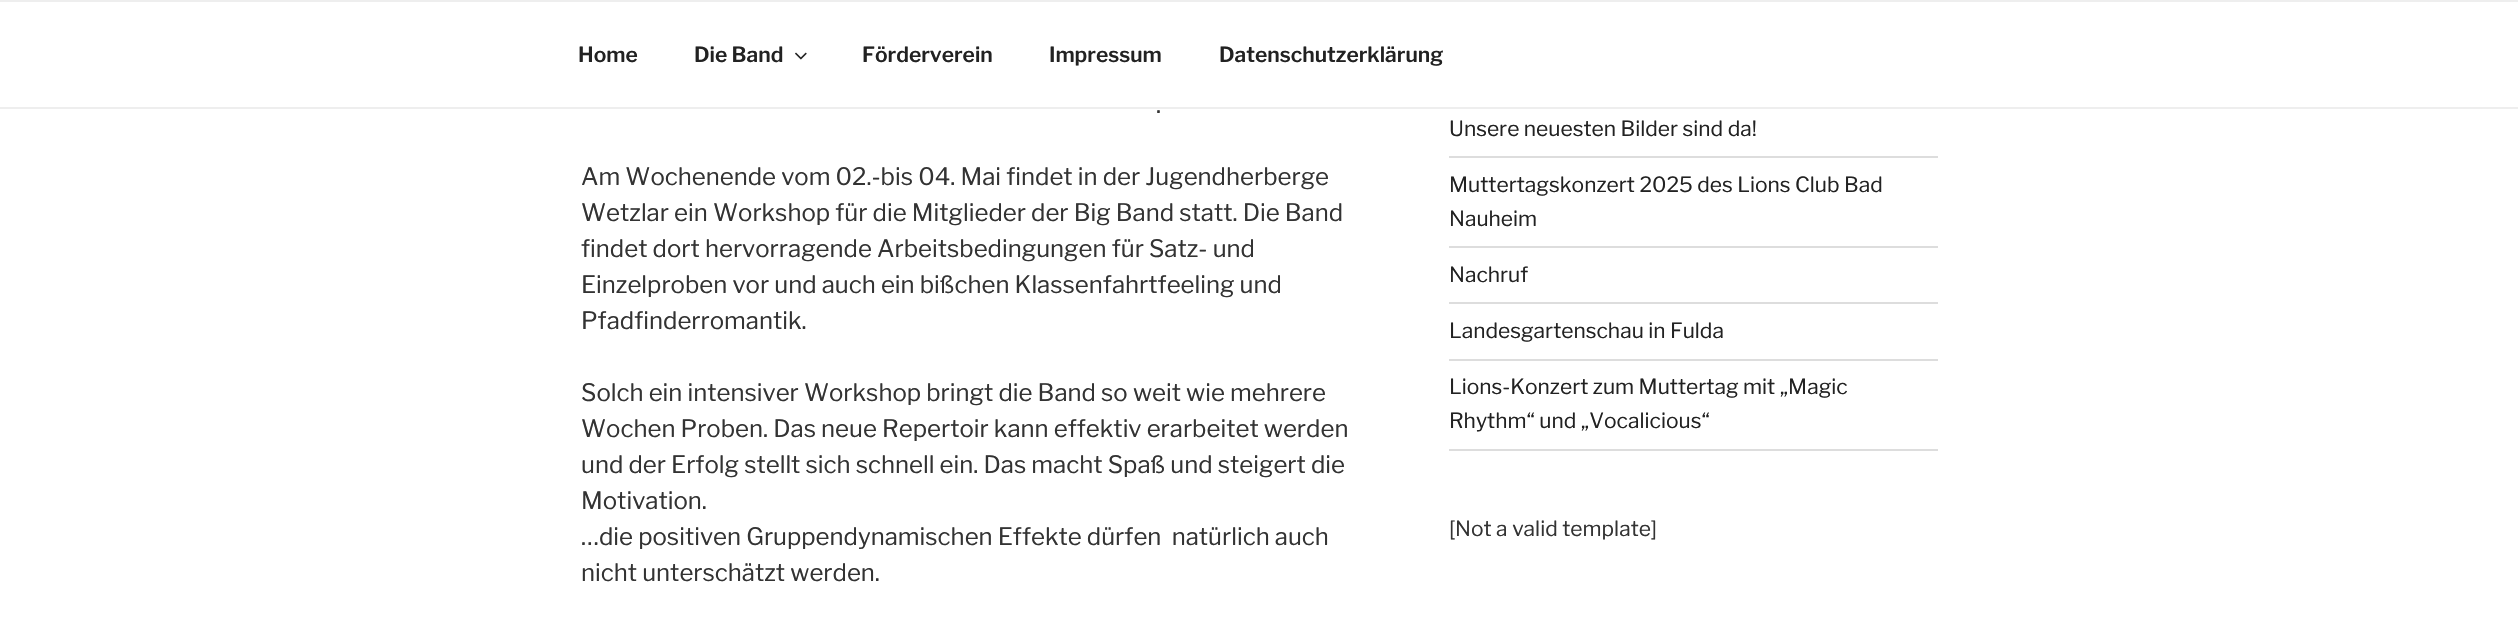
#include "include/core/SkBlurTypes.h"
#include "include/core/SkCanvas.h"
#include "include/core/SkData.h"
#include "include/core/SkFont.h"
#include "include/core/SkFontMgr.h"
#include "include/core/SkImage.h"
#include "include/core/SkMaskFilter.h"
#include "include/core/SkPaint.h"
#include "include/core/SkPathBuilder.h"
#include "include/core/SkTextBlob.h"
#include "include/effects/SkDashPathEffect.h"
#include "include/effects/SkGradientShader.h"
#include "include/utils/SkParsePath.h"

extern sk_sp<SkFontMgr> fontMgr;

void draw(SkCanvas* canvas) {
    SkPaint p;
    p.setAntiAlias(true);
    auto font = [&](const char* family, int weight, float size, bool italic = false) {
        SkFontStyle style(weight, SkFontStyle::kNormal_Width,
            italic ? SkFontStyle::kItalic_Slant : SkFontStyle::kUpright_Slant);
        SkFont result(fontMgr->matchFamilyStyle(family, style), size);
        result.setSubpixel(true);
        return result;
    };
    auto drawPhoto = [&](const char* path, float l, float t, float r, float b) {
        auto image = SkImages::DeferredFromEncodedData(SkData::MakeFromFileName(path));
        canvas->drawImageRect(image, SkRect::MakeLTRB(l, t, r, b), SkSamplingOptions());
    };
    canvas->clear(0xFFFFFFFF);
    p.setColor(0xFFEEEEEE);
    canvas->drawRect(SkRect::MakeLTRB(0, 0, 2518, 2), p);
    canvas->drawRect(SkRect::MakeLTRB(0, 107, 2518, 109), p);
    auto font1 = font("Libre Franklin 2", 100, 21);
    p.setColor(0xFF222222);
    canvas->drawString("Home", 578, 62, font1, p);
    canvas->drawString("Die Band", 694, 62, font1, p);
    drawPhoto("media/1.png", 795, 52, 807, 60);
    {
        const struct { const char* s; float x, y; } items[] = {
            {"Förderverein", 862, 62},
            {"Impressum", 1049, 62},
            {"Datenschutzerklärung", 1219, 62},
        };
        for (auto [s, x, y] : items) {
            canvas->drawString(s, x, y, font1, p);
        }
    }
    auto font2 = font("Libre Franklin", 100, 24);
    p.setColor(0xFF333333);
    {
        const struct { const char* s; float x, y; } items[] = {
            {".", 1156, 113},
            {"Am Wochenende vom 02.-bis 04. Mai findet in der Jugendherberge", 581, 185},
            {"Wetzlar ein Workshop für die Mitglieder der Big Band statt. Die Band", 581, 221},
            {"findet dort hervorragende Arbeitsbedingungen für Satz- und", 581, 257},
            {"Einzelproben vor und auch ein bißchen Klassenfahrtfeeling und", 581, 293},
            {"Pfadfinderromantik.", 581, 329},
            {"Solch ein intensiver Workshop bringt die Band so weit wie mehrere", 581, 401},
            {"Wochen Proben. Das neue Repertoir kann effektiv erarbeitet werden", 581, 437},
            {"und der Erfolg stellt sich schnell ein. Das macht Spaß und steigert die", 581, 473},
            {"Motivation.", 581, 509},
            {"…die positiven Gruppendynamischen Effekte dürfen  natürlich auch", 581, 545},
            {"nicht unterschätzt werden.", 581, 581},
        };
        for (auto [s, x, y] : items) {
            canvas->drawString(s, x, y, font2, p);
        }
    }
    p.setColor(0xFFDDDDDD);
    canvas->drawRect(SkRect::MakeLTRB(1449, 156, 1938, 158), p);
    auto font3 = font("Libre Franklin", 100, 21);
    p.setColor(0xFF222222);
    canvas->drawString("Unsere neuesten Bilder sind da!", 1449, 136, font3, p);
    p.setColor(0xFFDDDDDD);
    canvas->drawRect(SkRect::MakeLTRB(1449, 246, 1938, 248), p);
    p.setColor(0xFF222222);
    canvas->drawString("Muttertagskonzert 2025 des Lions Club Bad", 1449, 192, font3, p);
    canvas->drawString("Nauheim", 1449, 226, font3, p);
    p.setColor(0xFFDDDDDD);
    canvas->drawRect(SkRect::MakeLTRB(1449, 302, 1938, 304), p);
    p.setColor(0xFF222222);
    canvas->drawString("Nachruf", 1449, 282, font3, p);
    p.setColor(0xFFDDDDDD);
    canvas->drawRect(SkRect::MakeLTRB(1449, 359, 1938, 361), p);
    p.setColor(0xFF222222);
    canvas->drawString("Landesgartenschau in Fulda", 1449, 338, font3, p);
    p.setColor(0xFFDDDDDD);
    canvas->drawRect(SkRect::MakeLTRB(1449, 449, 1938, 451), p);
    p.setColor(0xFF222222);
    canvas->drawString("Lions-Konzert zum Muttertag mit „Magic", 1449, 394, font3, p);
    canvas->drawString("Rhythm“ und „Vocalicious“", 1449, 428, font3, p);
    p.setColor(0xFF333333);
    canvas->drawString("[Not a valid template]", 1449, 536, font3, p);
}
